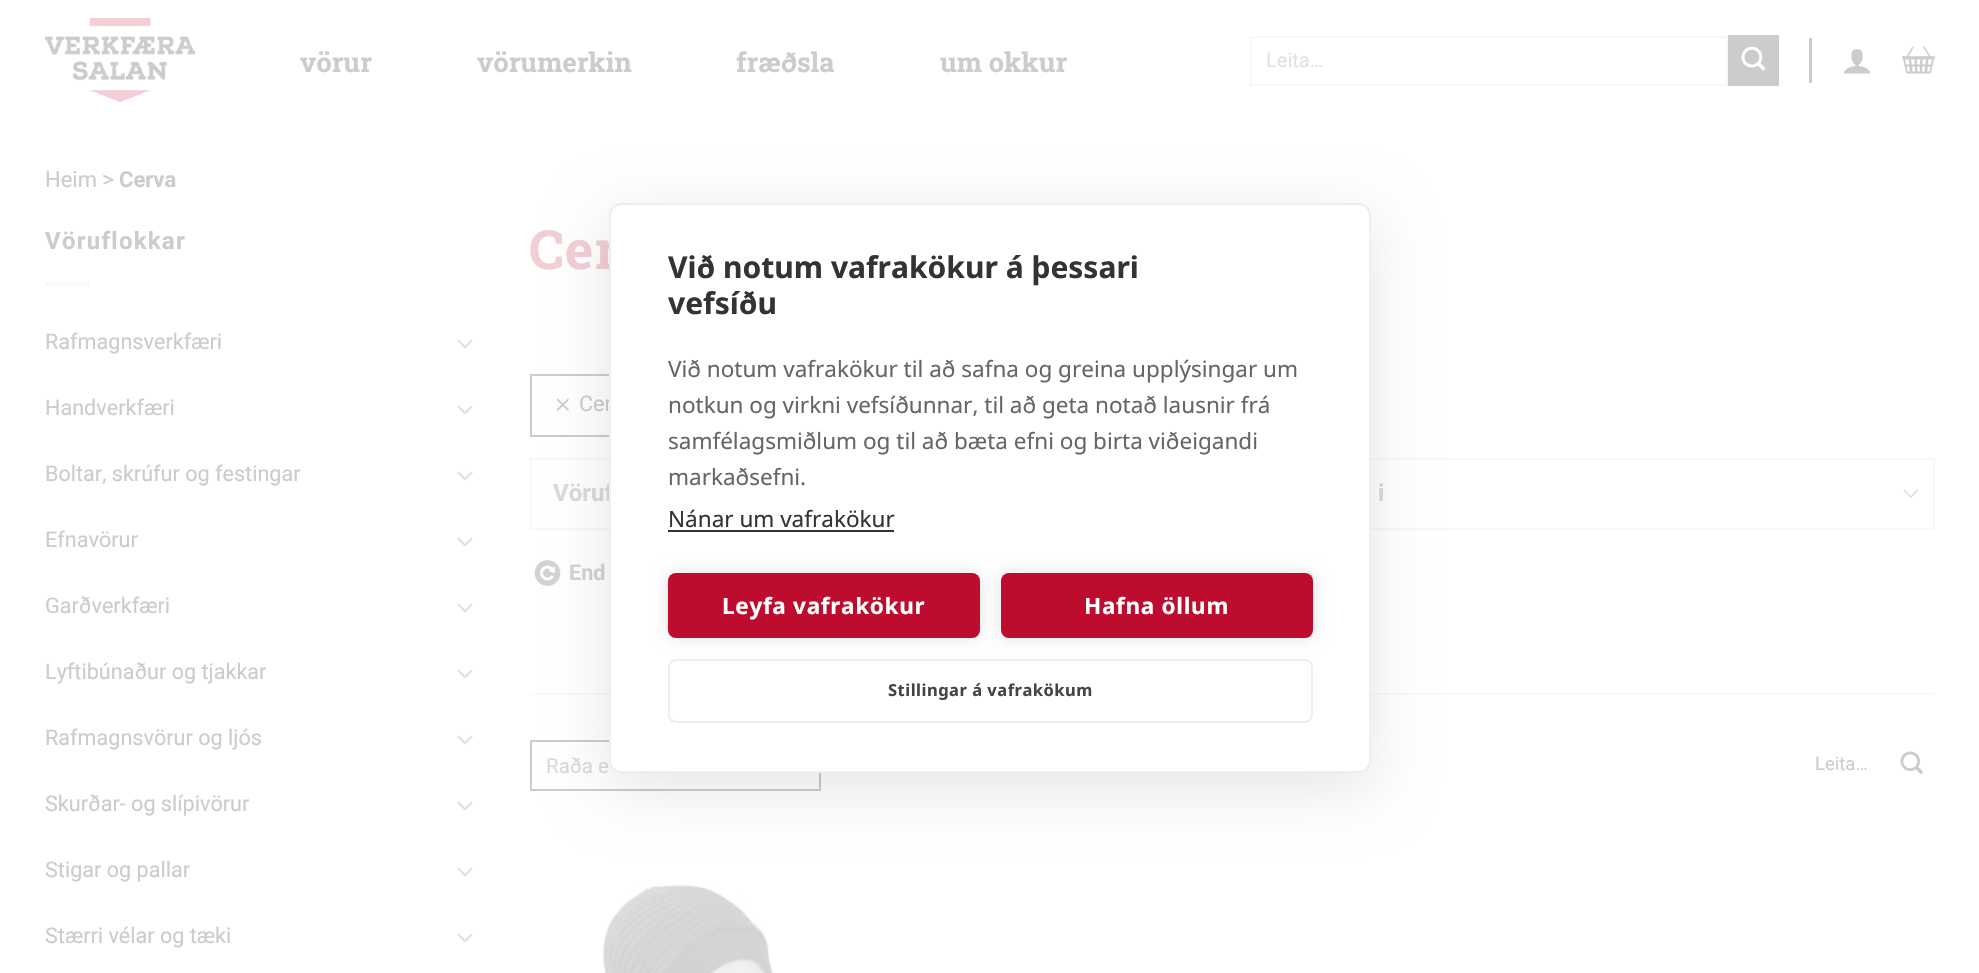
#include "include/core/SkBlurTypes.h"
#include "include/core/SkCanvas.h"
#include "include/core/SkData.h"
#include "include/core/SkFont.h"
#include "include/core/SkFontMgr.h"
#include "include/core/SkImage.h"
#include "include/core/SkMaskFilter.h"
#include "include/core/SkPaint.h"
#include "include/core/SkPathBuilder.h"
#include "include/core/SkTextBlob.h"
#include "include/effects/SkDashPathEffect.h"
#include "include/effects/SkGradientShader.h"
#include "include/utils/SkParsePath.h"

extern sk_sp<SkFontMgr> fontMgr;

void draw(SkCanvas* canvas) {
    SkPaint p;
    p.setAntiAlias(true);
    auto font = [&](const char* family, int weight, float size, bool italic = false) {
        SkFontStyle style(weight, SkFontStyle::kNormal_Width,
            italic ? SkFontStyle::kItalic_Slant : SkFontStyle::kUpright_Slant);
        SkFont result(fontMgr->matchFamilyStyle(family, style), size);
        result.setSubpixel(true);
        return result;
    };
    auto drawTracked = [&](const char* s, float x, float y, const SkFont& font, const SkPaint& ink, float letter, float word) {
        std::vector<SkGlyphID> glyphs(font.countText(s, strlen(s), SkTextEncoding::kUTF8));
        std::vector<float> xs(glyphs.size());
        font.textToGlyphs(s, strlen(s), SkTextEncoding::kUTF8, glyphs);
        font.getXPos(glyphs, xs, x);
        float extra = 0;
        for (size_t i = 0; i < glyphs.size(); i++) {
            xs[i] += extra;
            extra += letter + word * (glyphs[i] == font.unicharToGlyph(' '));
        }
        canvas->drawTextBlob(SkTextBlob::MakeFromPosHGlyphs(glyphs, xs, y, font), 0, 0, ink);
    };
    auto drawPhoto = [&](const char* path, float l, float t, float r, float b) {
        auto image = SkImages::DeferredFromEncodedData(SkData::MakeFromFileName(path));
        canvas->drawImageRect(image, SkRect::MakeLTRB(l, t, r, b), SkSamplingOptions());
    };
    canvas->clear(0xFFFFFFFF);
    drawPhoto("media/1.png", 45, 18, 195, 102);
    auto font1 = font("Roboto Slab", 700, 27);
    p.setColor(0xFFCCCCCC);
    {
        const struct { const char* s; float x, y; } items[] = {
            {"vörur", 300, 72},
            {"vörumerkin", 477, 72},
            {"fræðsla", 736, 72},
            {"um okkur", 940, 72},
        };
        for (auto [s, x, y] : items) {
            canvas->drawString(s, x, y, font1, p);
        }
    }
    p.setStyle(SkPaint::kStroke_Style);
    p.setStrokeWidth(2);
    p.setColor(0xFFF8F8F8);
    canvas->drawRect(SkRect::MakeLTRB(1251, 37, 1727, 85), p);
    auto font2 = font("Roboto", 400, 20);
    p.setStyle(SkPaint::kFill_Style);
    p.setColor(0xFFE3E3E3);
    canvas->drawString("Leita…", 1266, 67, font2, p);
    p.setColor(0xFFCCCCCC);
    canvas->drawRect(SkRect::MakeLTRB(1728, 35, 1779, 86), p);
    drawPhoto("media/2.png", 1741, 46, 1766, 71);
    canvas->drawRect(SkRect::MakeLTRB(1809, 38, 1812, 83), p);
    drawPhoto("media/3.png", 1843, 49, 1871, 74);
    drawPhoto("media/4.png", 1902, 46, 1935, 74);
    auto font3 = font("Roboto", 400, 22);
    canvas->drawString("Heim", 45, 187, font3, p);
    auto font4 = font("Roboto", 400, 23);
    canvas->drawString(">", 102, 187, font4, p);
    auto font5 = font("Roboto", 700, 22);
    canvas->drawString("Cerva", 119, 187, font5, p);
    auto font6 = font("Roboto", 700, 24);
    drawTracked("Vöruflokkar", 45, 249, font6, p, 1.25f, 0);
    p.setColor(0xFFFAFAFA);
    canvas->drawRect(SkRect::MakeLTRB(45, 282, 90, 287), p);
    auto font7 = font("Roboto", 400, 21.6f);
    p.setColor(0xFFCCCCCC);
    canvas->drawString("Rafmagnsverkfæri", 45, 349, font7, p);
    drawPhoto("media/5.png", 457, 339, 473, 349);
    canvas->drawString("Handverkfæri", 45, 415, font7, p);
    drawPhoto("media/5.png", 457, 405, 473, 415);
    canvas->drawString("Boltar, skrúfur og festingar", 45, 481, font7, p);
    drawPhoto("media/5.png", 457, 471, 473, 481);
    canvas->drawString("Efnavörur", 45, 547, font7, p);
    drawPhoto("media/5.png", 457, 537, 473, 547);
    canvas->drawString("Garðverkfæri", 45, 613, font7, p);
    drawPhoto("media/5.png", 457, 603, 473, 613);
    canvas->drawString("Lyftibúnaður og tjakkar", 45, 679, font7, p);
    drawPhoto("media/5.png", 457, 669, 473, 679);
    canvas->drawString("Rafmagnsvörur og ljós", 45, 745, font7, p);
    drawPhoto("media/5.png", 457, 735, 473, 745);
    canvas->drawString("Skurðar- og slípivörur", 45, 811, font7, p);
    drawPhoto("media/5.png", 457, 801, 473, 811);
    canvas->drawString("Stigar og pallar", 45, 877, font7, p);
    drawPhoto("media/5.png", 457, 867, 473, 877);
    canvas->drawString("Stærri vélar og tæki", 45, 943, font7, p);
    drawPhoto("media/5.png", 457, 933, 473, 943);
    auto font8 = font("Roboto Slab", 700, 54);
    p.setColor(0xFFF2CED5);
    drawTracked("Cer", 529, 269, font8, p, 1, 0);
    p.setStyle(SkPaint::kStroke_Style);
    p.setColor(0xFFCCCCCC);
    canvas->drawRect(SkRect::MakeLTRB(531, 375, 656, 436), p);
    drawPhoto("media/6.png", 556, 398, 569, 411);
    p.setStyle(SkPaint::kFill_Style);
    canvas->drawString("Cer", 579, 411, font7, p);
    p.setStyle(SkPaint::kStroke_Style);
    p.setColor(0xFFF8F8F8);
    canvas->drawRect(SkRect::MakeLTRB(531, 459, 1216, 529), p);
    p.setStyle(SkPaint::kFill_Style);
    p.setColor(0xFFDADADA);
    canvas->drawString("Vöruf", 553, 501, font6, p);
    p.setStyle(SkPaint::kStroke_Style);
    p.setColor(0xFFF8F8F8);
    canvas->drawRect(SkRect::MakeLTRB(1248, 459, 1934, 529), p);
    p.setStyle(SkPaint::kFill_Style);
    p.setColor(0xFFDADADA);
    canvas->drawString("i", 1378, 501, font6, p);
    drawPhoto("media/7.png", 1903, 489, 1919, 498);
    drawPhoto("media/8.png", 534, 560, 561, 586);
    auto font9 = font("Roboto", 700, 21.6f);
    p.setColor(0xFFD3D3D3);
    canvas->drawString("End", 569, 580, font9, p);
    p.setColor(0xFFFAFAFA);
    canvas->drawRect(SkRect::MakeLTRB(530, 693, 1935, 695), p);
    p.setStyle(SkPaint::kStroke_Style);
    p.setColor(0xFFCCCCCC);
    canvas->drawRect(SkRect::MakeLTRB(531, 741, 820, 790), p);
    auto font10 = font("Roboto", 400, 20.5f);
    p.setStyle(SkPaint::kFill_Style);
    p.setColor(0xFFDADADA);
    canvas->drawString("Raða e", 546, 773, font10, p);
    auto font11 = font("Roboto", 400, 18.5f);
    p.setColor(0xFFCCCCCC);
    canvas->drawString("Leita…", 1815, 770, font11, p);
    drawPhoto("media/9.png", 1900, 751, 1923, 774);
    drawPhoto("media/10.png", 601, 884, 774, 973);
    p.setColor(0x1A000000);
    p.setMaskFilter(SkMaskFilter::MakeBlur(kNormal_SkBlurStyle, 30));
    canvas->drawRoundRect(SkRect::MakeLTRB(609, 218, 1371, 788), 12, 12, p);
    p.setMaskFilter(nullptr);
    p.setColor(0xFFFFFFFF);
    canvas->drawRoundRect(SkRect::MakeLTRB(610, 204, 1370, 772), 11, 11, p);
    p.setStyle(SkPaint::kStroke_Style);
    p.setColor(0xFFEEEEEE);
    canvas->drawRoundRect(SkRect::MakeLTRB(610, 204, 1370, 772), 11, 11, p);
    auto font12 = font("Noto Sans", 700, 30);
    p.setStyle(SkPaint::kFill_Style);
    p.setColor(0xFF333333);
    canvas->drawString("Við notum vafrakökur á þessari", 668, 278, font12, p);
    canvas->drawString("vefsíðu", 668, 314, font12, p);
    auto font13 = font("Noto Sans", 400, 22.5f);
    p.setColor(0xFF666666);
    {
        const struct { const char* s; float x, y; } items[] = {
            {"Við notum vafrakökur til að safna og greina upplýsingar um", 668, 377},
            {"notkun og virkni vefsíðunnar, til að geta notað lausnir frá", 668, 413},
            {"samfélagsmiðlum og til að bæta efni og birta viðeigandi", 668, 449},
            {"markaðsefni.", 668, 485},
        };
        for (auto [s, x, y] : items) {
            canvas->drawString(s, x, y, font13, p);
        }
    }
    p.setColor(0xFF333333);
    canvas->drawString("Nánar um vafrakökur", 668, 527, font13, p);
    canvas->drawRect(SkRect::MakeLTRB(668, 530, 894, 532), p);
    p.setColor(0x1F000000);
    p.setMaskFilter(SkMaskFilter::MakeBlur(kNormal_SkBlurStyle, 7.5f));
    canvas->drawRoundRect(SkRect::MakeLTRB(668, 573, 980, 638), 8, 8, p);
    p.setMaskFilter(nullptr);
    p.setColor(0xFFBD0C2E);
    canvas->drawRoundRect(SkRect::MakeLTRB(668, 573, 980, 638), 8, 8, p);
    auto font14 = font("Noto Sans", 700, 22.5f);
    p.setColor(0xFFFFFFFF);
    drawTracked("Leyfa vafrakökur", 722, 614, font14, p, 0.7f, 0);
    p.setColor(0x1F000000);
    p.setMaskFilter(SkMaskFilter::MakeBlur(kNormal_SkBlurStyle, 7.5f));
    canvas->drawRoundRect(SkRect::MakeLTRB(1001, 573, 1313, 638), 8, 8, p);
    p.setMaskFilter(nullptr);
    p.setColor(0xFFBD0C2E);
    canvas->drawRoundRect(SkRect::MakeLTRB(1001, 573, 1313, 638), 8, 8, p);
    p.setColor(0xFFFFFFFF);
    drawTracked("Hafna öllum", 1084, 614, font14, p, 0.7f, 0);
    p.setStyle(SkPaint::kStroke_Style);
    p.setColor(0xFFEEEEEE);
    canvas->drawRoundRect(SkRect::MakeLTRB(669, 660, 1312, 722), 7, 7, p);
    auto font15 = font("Noto Sans", 700, 16.5f);
    p.setStyle(SkPaint::kFill_Style);
    p.setColor(0xFF444444);
    drawTracked("Stillingar á vafrakökum", 888, 696, font15, p, 0.5f, 0);
}
